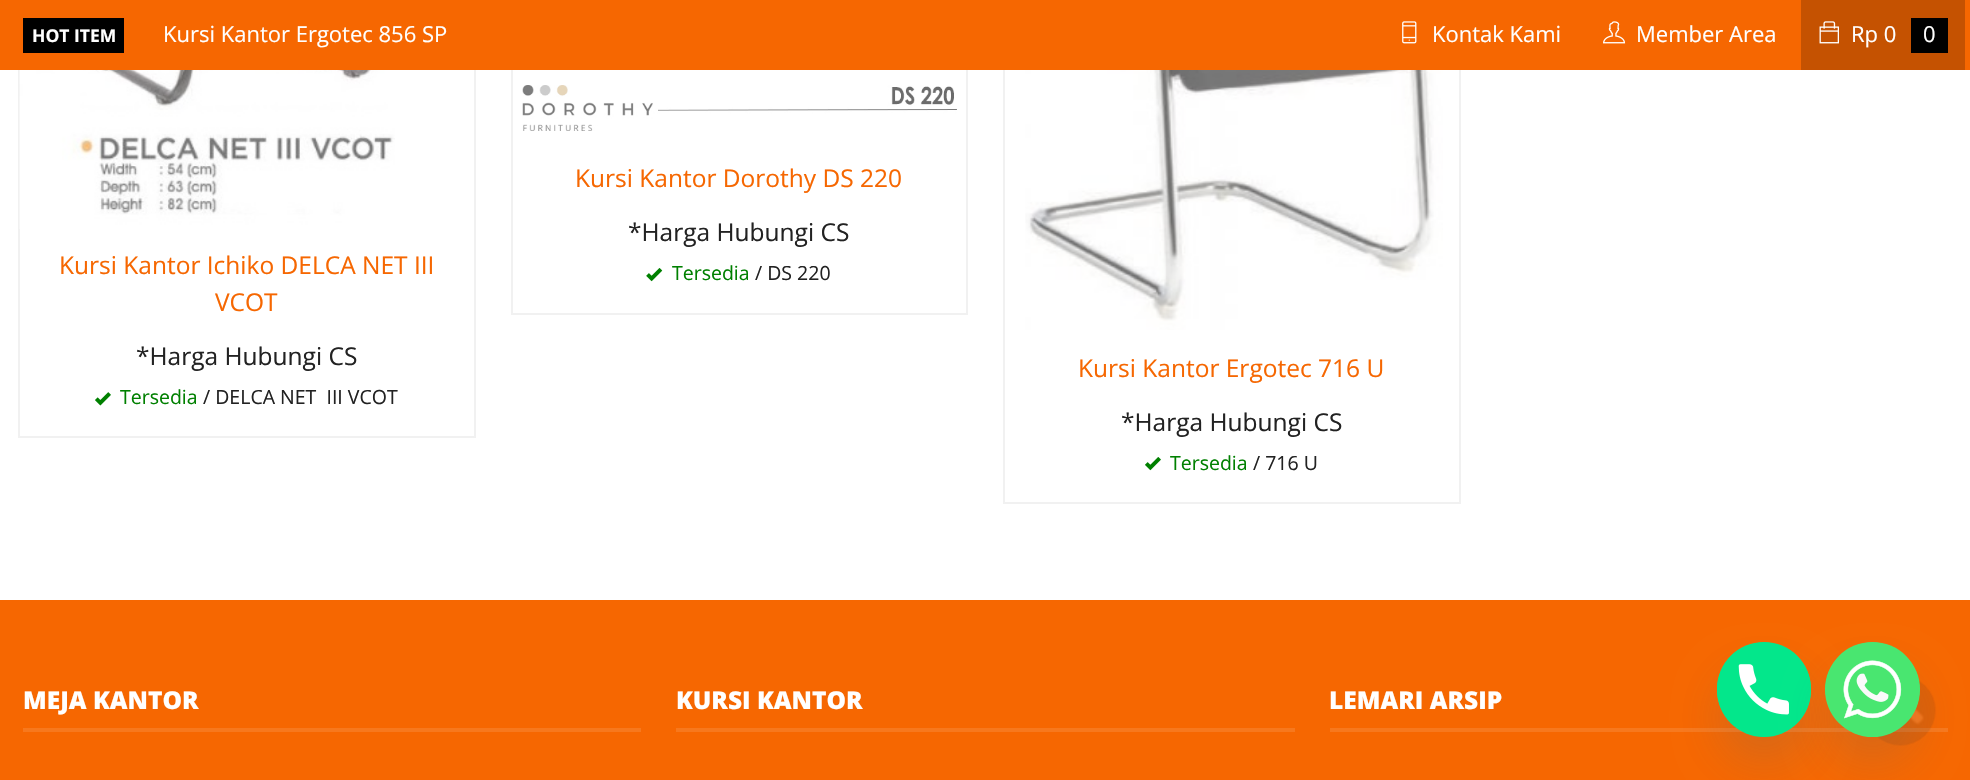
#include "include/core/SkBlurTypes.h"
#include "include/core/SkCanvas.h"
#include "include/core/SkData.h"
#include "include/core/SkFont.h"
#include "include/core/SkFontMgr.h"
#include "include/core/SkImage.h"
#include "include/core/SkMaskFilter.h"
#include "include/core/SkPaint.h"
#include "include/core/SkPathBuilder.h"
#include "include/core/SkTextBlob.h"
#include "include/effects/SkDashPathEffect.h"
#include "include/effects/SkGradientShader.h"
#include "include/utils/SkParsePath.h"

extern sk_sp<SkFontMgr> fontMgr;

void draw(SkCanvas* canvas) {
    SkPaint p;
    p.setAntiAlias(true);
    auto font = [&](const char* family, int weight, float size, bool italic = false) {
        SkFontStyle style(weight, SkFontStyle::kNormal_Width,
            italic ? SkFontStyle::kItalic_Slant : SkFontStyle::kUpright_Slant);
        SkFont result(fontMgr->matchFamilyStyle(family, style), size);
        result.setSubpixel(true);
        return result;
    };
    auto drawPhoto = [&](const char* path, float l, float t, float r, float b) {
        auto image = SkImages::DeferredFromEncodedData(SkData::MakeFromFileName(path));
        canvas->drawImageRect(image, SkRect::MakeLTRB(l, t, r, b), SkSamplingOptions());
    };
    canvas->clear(0xFFFFFFFF);
    p.setStyle(SkPaint::kStroke_Style);
    p.setStrokeWidth(2);
    p.setColor(0xFFF1F1F1);
    canvas->drawRect(SkRect::MakeLTRB(512, -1, 967, 314), p);
    canvas->drawRect(SkRect::MakeLTRB(19, -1, 475, 437), p);
    canvas->drawRect(SkRect::MakeLTRB(1004, -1, 1460, 503), p);
    p.setStyle(SkPaint::kFill_Style);
    p.setColor(0xFFF66701);
    canvas->drawRect(SkRect::MakeLTRB(0, 0, 1970, 70), p);
    p.setColor(0xFF000000);
    canvas->drawRect(SkRect::MakeLTRB(23, 18, 124, 53), p);
    auto font1 = font("Open Sans", 700, 17.5f);
    p.setColor(0xFFFFFFFF);
    canvas->drawString("HOT ITEM", 32, 42, font1, p);
    auto font2 = font("Open Sans", 400, 22);
    canvas->drawString("Kursi Kantor Ergotec 856 SP", 163, 42, font2, p);
    drawPhoto("media/1.png", 1402, 21, 1417, 44);
    canvas->drawString("Kontak Kami", 1432, 42, font2, p);
    drawPhoto("media/2.png", 1603, 21, 1626, 44);
    canvas->drawString("Member Area", 1636, 42, font2, p);
    p.setColor(0xFFC55201);
    canvas->drawRect(SkRect::MakeLTRB(1801, 0, 1965, 70), p);
    drawPhoto("media/3.png", 1819, 21, 1839, 44);
    p.setColor(0xFFFFFFFF);
    canvas->drawString("Rp 0", 1851, 42, font2, p);
    p.setColor(0xFF000000);
    canvas->drawRect(SkRect::MakeLTRB(1911, 18, 1948, 53), p);
    p.setColor(0xFFFFFFFF);
    canvas->drawString("0", 1923, 42, font2, p);
    drawPhoto("media/4.png", 522, 70, 957, 131);
    auto font3 = font("Open Sans", 400, 24.5f);
    p.setColor(0xFFF66701);
    canvas->drawString("Kursi Kantor Dorothy DS 220", 575, 187, font3, p);
    p.setColor(0xFF222222);
    canvas->drawString("*Harga Hubungi CS", 628, 241, font3, p);
    drawPhoto("media/5.png", 646, 268, 663, 282);
    auto font4 = font("Open Sans", 400, 19.5f);
    p.setColor(0xFF008000);
    canvas->drawString("Tersedia", 672, 280, font4, p);
    p.setColor(0xFF222222);
    canvas->drawString("/ DS 220", 755, 280, font4, p);
    drawPhoto("media/6.png", 19, 70, 395, 229);
    p.setColor(0xFFF66701);
    canvas->drawString("Kursi Kantor Ichiko DELCA NET III", 59, 274, font3, p);
    canvas->drawString("VCOT", 215, 311, font3, p);
    p.setColor(0xFF222222);
    canvas->drawString("*Harga Hubungi CS", 136, 365, font3, p);
    drawPhoto("media/7.png", 95, 392, 111, 406);
    p.setColor(0xFF008000);
    canvas->drawString("Tersedia", 120, 404, font4, p);
    p.setColor(0xFF222222);
    canvas->drawString("/ DELCA NET  III VCOT", 203, 404, font4, p);
    drawPhoto("media/8.png", 1025, 70, 1443, 330);
    p.setColor(0xFFF66701);
    canvas->drawString("Kursi Kantor Ergotec 716 U", 1078, 377, font3, p);
    p.setColor(0xFF222222);
    canvas->drawString("*Harga Hubungi CS", 1121, 431, font3, p);
    drawPhoto("media/9.png", 1145, 457, 1161, 471);
    p.setColor(0xFF008000);
    canvas->drawString("Tersedia", 1170, 470, font4, p);
    p.setColor(0xFF222222);
    canvas->drawString("/ 716 U", 1253, 470, font4, p);
    p.setColor(0xFFF66701);
    canvas->drawRect(SkRect::MakeLTRB(0, 600, 1970, 780), p);
    p.setColor(0xFFF7781D);
    canvas->drawRect(SkRect::MakeLTRB(23, 728, 641, 732), p);
    auto font5 = font("Open Sans", 800, 24.5f);
    p.setColor(0xFFFFFFFF);
    canvas->drawString("MEJA KANTOR", 23, 709, font5, p);
    p.setColor(0xFFF7781D);
    canvas->drawRect(SkRect::MakeLTRB(676, 728, 1295, 732), p);
    p.setColor(0xFFFFFFFF);
    canvas->drawString("KURSI KANTOR", 676, 709, font5, p);
    p.setColor(0xFFF7781D);
    canvas->drawRect(SkRect::MakeLTRB(1330, 728, 1948, 732), p);
    p.setColor(0xFFFFFFFF);
    canvas->drawString("LEMARI ARSIP", 1329, 709, font5, p);
    p.setColor(0x2949687E);
    p.setMaskFilter(SkMaskFilter::MakeBlur(kNormal_SkBlurStyle, 21));
    canvas->drawRoundRect(SkRect::MakeLTRB(1717, 670, 1811, 765), 47, 47, p);
    p.setMaskFilter(nullptr);
    p.setColor(0xFF03E78B);
    canvas->drawRoundRect(SkRect::MakeLTRB(1717, 642, 1811, 737), 47, 47, p);
    drawPhoto("media/10.png", 1717, 642, 1811, 737);
    drawPhoto("media/12.png", 1877, 681, 1936, 746);
    p.setColor(0x2949687E);
    p.setMaskFilter(SkMaskFilter::MakeBlur(kNormal_SkBlurStyle, 21));
    canvas->drawRoundRect(SkRect::MakeLTRB(1825, 670, 1920, 765), 47.5f, 47.5f, p);
    p.setMaskFilter(nullptr);
    p.setColor(0xFF49E670);
    canvas->drawCircle(1872.5f, 689.5f, 47.5f, p);
    drawPhoto("media/11.png", 1825, 642, 1920, 737);
}
